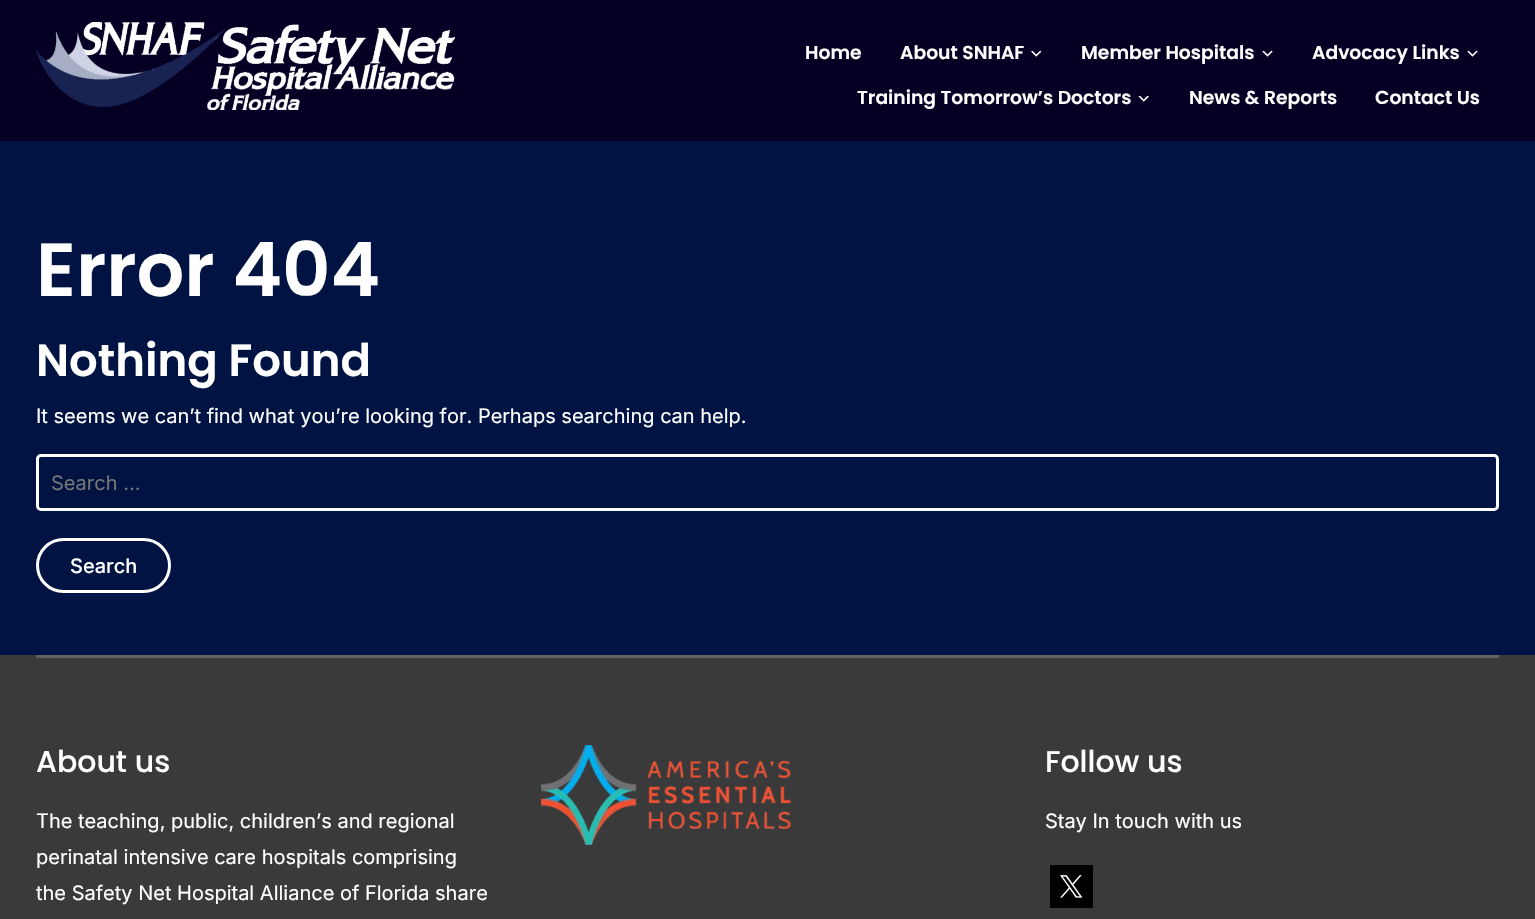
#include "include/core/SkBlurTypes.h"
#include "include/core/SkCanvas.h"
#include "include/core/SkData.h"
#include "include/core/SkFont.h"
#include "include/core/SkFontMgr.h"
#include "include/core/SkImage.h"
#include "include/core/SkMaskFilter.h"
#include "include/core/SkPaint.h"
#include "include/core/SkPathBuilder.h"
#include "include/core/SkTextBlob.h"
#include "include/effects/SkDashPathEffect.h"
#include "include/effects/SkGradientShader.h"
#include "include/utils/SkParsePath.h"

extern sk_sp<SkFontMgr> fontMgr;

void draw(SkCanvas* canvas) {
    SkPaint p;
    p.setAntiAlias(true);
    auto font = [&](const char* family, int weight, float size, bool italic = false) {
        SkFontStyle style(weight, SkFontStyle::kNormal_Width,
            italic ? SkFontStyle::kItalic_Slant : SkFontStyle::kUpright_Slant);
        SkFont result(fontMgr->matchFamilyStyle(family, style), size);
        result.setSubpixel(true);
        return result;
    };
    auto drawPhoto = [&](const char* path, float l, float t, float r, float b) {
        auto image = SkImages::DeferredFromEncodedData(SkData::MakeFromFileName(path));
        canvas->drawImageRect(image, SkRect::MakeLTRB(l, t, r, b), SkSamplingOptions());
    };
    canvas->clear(0xFF001342);
    p.setColor(0xFF050023);
    canvas->drawRect(SkRect::MakeLTRB(0, 0, 1535, 141), p);
    drawPhoto("media/1.png", 36, 22, 455, 110);
    auto font1 = font("Poppins", 600, 18.75f);
    p.setColor(0xFFFFFFFF);
    canvas->drawString("Home", 805, 59, font1, p);
    canvas->drawString("About SNHAF", 900, 59, font1, p);
    drawPhoto("media/2.png", 1031, 50, 1042, 57);
    canvas->drawString("Member Hospitals", 1081, 59, font1, p);
    drawPhoto("media/3.png", 1262, 50, 1273, 57);
    canvas->drawString("Advocacy Links", 1312, 59, font1, p);
    drawPhoto("media/3.png", 1467, 50, 1478, 57);
    canvas->drawString("Training Tomorrow’s Doctors", 857, 104, font1, p);
    drawPhoto("media/4.png", 1138, 95, 1149, 102);
    canvas->drawString("News & Reports", 1189, 104, font1, p);
    canvas->drawString("Contact Us", 1375, 104, font1, p);
    auto font2 = font("Poppins", 600, 75);
    canvas->drawString("Error 404", 36, 296, font2, p);
    auto font3 = font("Poppins", 600, 45);
    canvas->drawString("Nothing Found", 36, 376, font3, p);
    auto font4 = font("Inter", 400, 20);
    canvas->drawString("It seems we can’t find what you’re looking for. Perhaps searching can help.", 36, 423, font4, p);
    p.setStyle(SkPaint::kStroke_Style);
    p.setStrokeWidth(3);
    canvas->drawRoundRect(SkRect::MakeLTRB(37.5f, 455.5f, 1497.5f, 509.5f), 3.5f, 3.5f, p);
    p.setStyle(SkPaint::kFill_Style);
    p.setColor(0xFF757575);
    canvas->drawString("Search …", 51, 490, font4, p);
    p.setStyle(SkPaint::kStroke_Style);
    p.setColor(0xFFFFFFFF);
    canvas->drawRoundRect(SkRect::MakeLTRB(37.5f, 539.5f, 169.5f, 591.5f), 26, 26, p);
    auto font5 = font("Inter", 500, 20);
    p.setStyle(SkPaint::kFill_Style);
    canvas->drawString("Search", 70, 573, font5, p);
    p.setColor(0xFF3A3A3A);
    canvas->drawRect(SkRect::MakeLTRB(0, 655, 1535, 919), p);
    p.setColor(0xFF616161);
    canvas->drawRect(SkRect::MakeLTRB(36, 655, 1499, 658), p);
    auto font6 = font("Poppins", 500, 30);
    p.setColor(0xFFFFFFFF);
    canvas->drawString("About us", 36, 772, font6, p);
    {
        const struct { const char* s; float x, y; } items[] = {
            {"The teaching, public, children’s and regional", 36, 828},
            {"perinatal intensive care hospitals comprising", 36, 864},
            {"the Safety Net Hospital Alliance of Florida share", 36, 900},
        };
        for (auto [s, x, y] : items) {
            canvas->drawString(s, x, y, font4, p);
        }
    }
    drawPhoto("media/5.png", 541, 745, 792, 845);
    canvas->drawString("Follow us", 1045, 772, font6, p);
    canvas->drawString("Stay In touch with us", 1045, 828, font4, p);
    p.setColor(0xFF000000);
    canvas->drawRect(SkRect::MakeLTRB(1050, 865, 1093, 908), p);
    drawPhoto("media/6.png", 1060, 875, 1083, 898);
}
